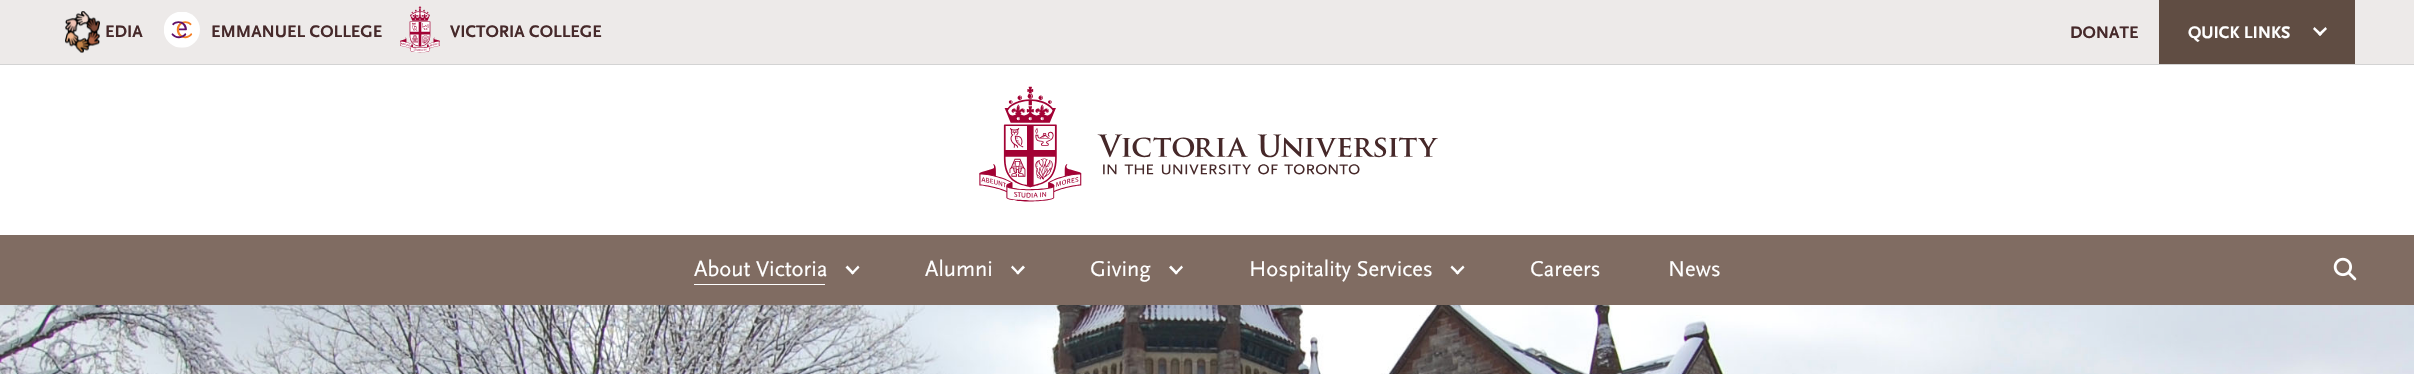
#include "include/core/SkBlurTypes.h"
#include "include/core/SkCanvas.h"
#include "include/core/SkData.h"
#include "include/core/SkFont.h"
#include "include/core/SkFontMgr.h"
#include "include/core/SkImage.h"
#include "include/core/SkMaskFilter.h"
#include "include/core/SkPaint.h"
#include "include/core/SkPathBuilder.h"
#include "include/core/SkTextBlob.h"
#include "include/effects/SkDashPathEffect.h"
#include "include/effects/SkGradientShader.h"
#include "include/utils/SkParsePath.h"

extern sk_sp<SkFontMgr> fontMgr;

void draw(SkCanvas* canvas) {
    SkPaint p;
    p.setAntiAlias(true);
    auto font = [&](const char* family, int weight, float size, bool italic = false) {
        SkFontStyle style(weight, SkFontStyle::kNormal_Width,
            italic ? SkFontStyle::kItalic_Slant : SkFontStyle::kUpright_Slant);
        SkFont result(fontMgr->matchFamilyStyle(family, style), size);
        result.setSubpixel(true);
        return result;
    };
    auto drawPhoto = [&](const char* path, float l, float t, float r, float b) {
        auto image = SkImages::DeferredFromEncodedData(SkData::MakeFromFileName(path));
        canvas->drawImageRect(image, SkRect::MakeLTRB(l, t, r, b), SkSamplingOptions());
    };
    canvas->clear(0xFFFFFFFF);
    p.setColor(0xFFEDEAE9);
    canvas->drawRect(SkRect::MakeLTRB(0, 0, 2414, 64), p);
    p.setColor(0xFFD3D3D3);
    canvas->drawRect(SkRect::MakeLTRB(0, 64, 2414, 65), p);
    drawPhoto("media/1.png", 65, 11, 100, 53);
    auto font1 = font("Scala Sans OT", 700, 17.5f);
    p.setColor(0xFF46292A);
    canvas->drawString("EDIA", 105, 37, font1, p);
    drawPhoto("media/2.png", 164, 12, 200, 48);
    canvas->drawString("EMMANUEL COLLEGE", 211, 37, font1, p);
    drawPhoto("media/3.png", 400, 6, 440, 53);
    canvas->drawString("VICTORIA COLLEGE", 450, 37, font1, p);
    canvas->drawString("DONATE", 2070, 38, font1, p);
    p.setColor(0xFF604D43);
    canvas->drawRect(SkRect::MakeLTRB(2159, 0, 2355, 64), p);
    p.setColor(0xFFFFFFFF);
    canvas->drawString("QUICK LINKS", 2188, 38, font1, p);
    canvas->drawPath(SkPathBuilder().moveTo(2325.5f, 27).lineTo(2327, 29).lineTo(2320, 36).lineTo(2318, 34).close().detach(), p);
    canvas->drawPath(SkPathBuilder().moveTo(2314.5f, 27).lineTo(2322, 34).lineTo(2320, 36).lineTo(2313, 29).close().detach(), p);
    drawPhoto("media/4.png", 979, 86, 1438, 202);
    p.setColor(0xFF806C62);
    canvas->drawRect(SkRect::MakeLTRB(0, 235, 2414, 305), p);
    auto font2 = font("Scala Sans OT", 400, 22.5f);
    p.setColor(0xFFFFFFFF);
    canvas->drawString("About Victoria", 694, 276, font2, p);
    canvas->drawPath(SkPathBuilder().moveTo(858, 265.5f).lineTo(859.5f, 267.5f).lineTo(852.5f, 274.5f).lineTo(851, 273).close().detach(), p);
    canvas->drawPath(SkPathBuilder().moveTo(847.5f, 265.5f).lineTo(854.5f, 273).lineTo(852.5f, 274.5f).lineTo(845.5f, 267.5f).close().detach(), p);
    canvas->drawRect(SkRect::MakeLTRB(694, 284, 825, 285), p);
    canvas->drawString("Alumni", 925, 276, font2, p);
    canvas->drawPath(SkPathBuilder().moveTo(1023, 265.5f).lineTo(1025, 267.5f).lineTo(1018, 274.5f).lineTo(1016, 273).close().detach(), p);
    canvas->drawPath(SkPathBuilder().moveTo(1012.5f, 265.5f).lineTo(1019.5f, 273).lineTo(1018, 274.5f).lineTo(1011, 267.5f).close().detach(), p);
    canvas->drawString("Giving", 1090, 276, font2, p);
    canvas->drawPath(SkPathBuilder().moveTo(1181.5f, 265.5f).lineTo(1183, 267.5f).lineTo(1176, 274.5f).lineTo(1174.5f, 273).close().detach(), p);
    canvas->drawPath(SkPathBuilder().moveTo(1171, 265.5f).lineTo(1178, 273).lineTo(1176, 274.5f).lineTo(1169, 267.5f).close().detach(), p);
    canvas->drawString("Hospitality Services", 1249, 276, font2, p);
    canvas->drawPath(SkPathBuilder().moveTo(1463, 265.5f).lineTo(1464.5f, 267.5f).lineTo(1457.5f, 274.5f).lineTo(1455.5f, 273).close().detach(), p);
    canvas->drawPath(SkPathBuilder().moveTo(1452, 265.5f).lineTo(1459.5f, 273).lineTo(1457.5f, 274.5f).lineTo(1450.5f, 267.5f).close().detach(), p);
    canvas->drawString("Careers", 1530, 276, font2, p);
    canvas->drawString("News", 1668, 276, font2, p);
    drawPhoto("media/5.png", 2333, 257, 2357, 281);
    drawPhoto("media/6.png", 0, 305, 2414, 374);
}
